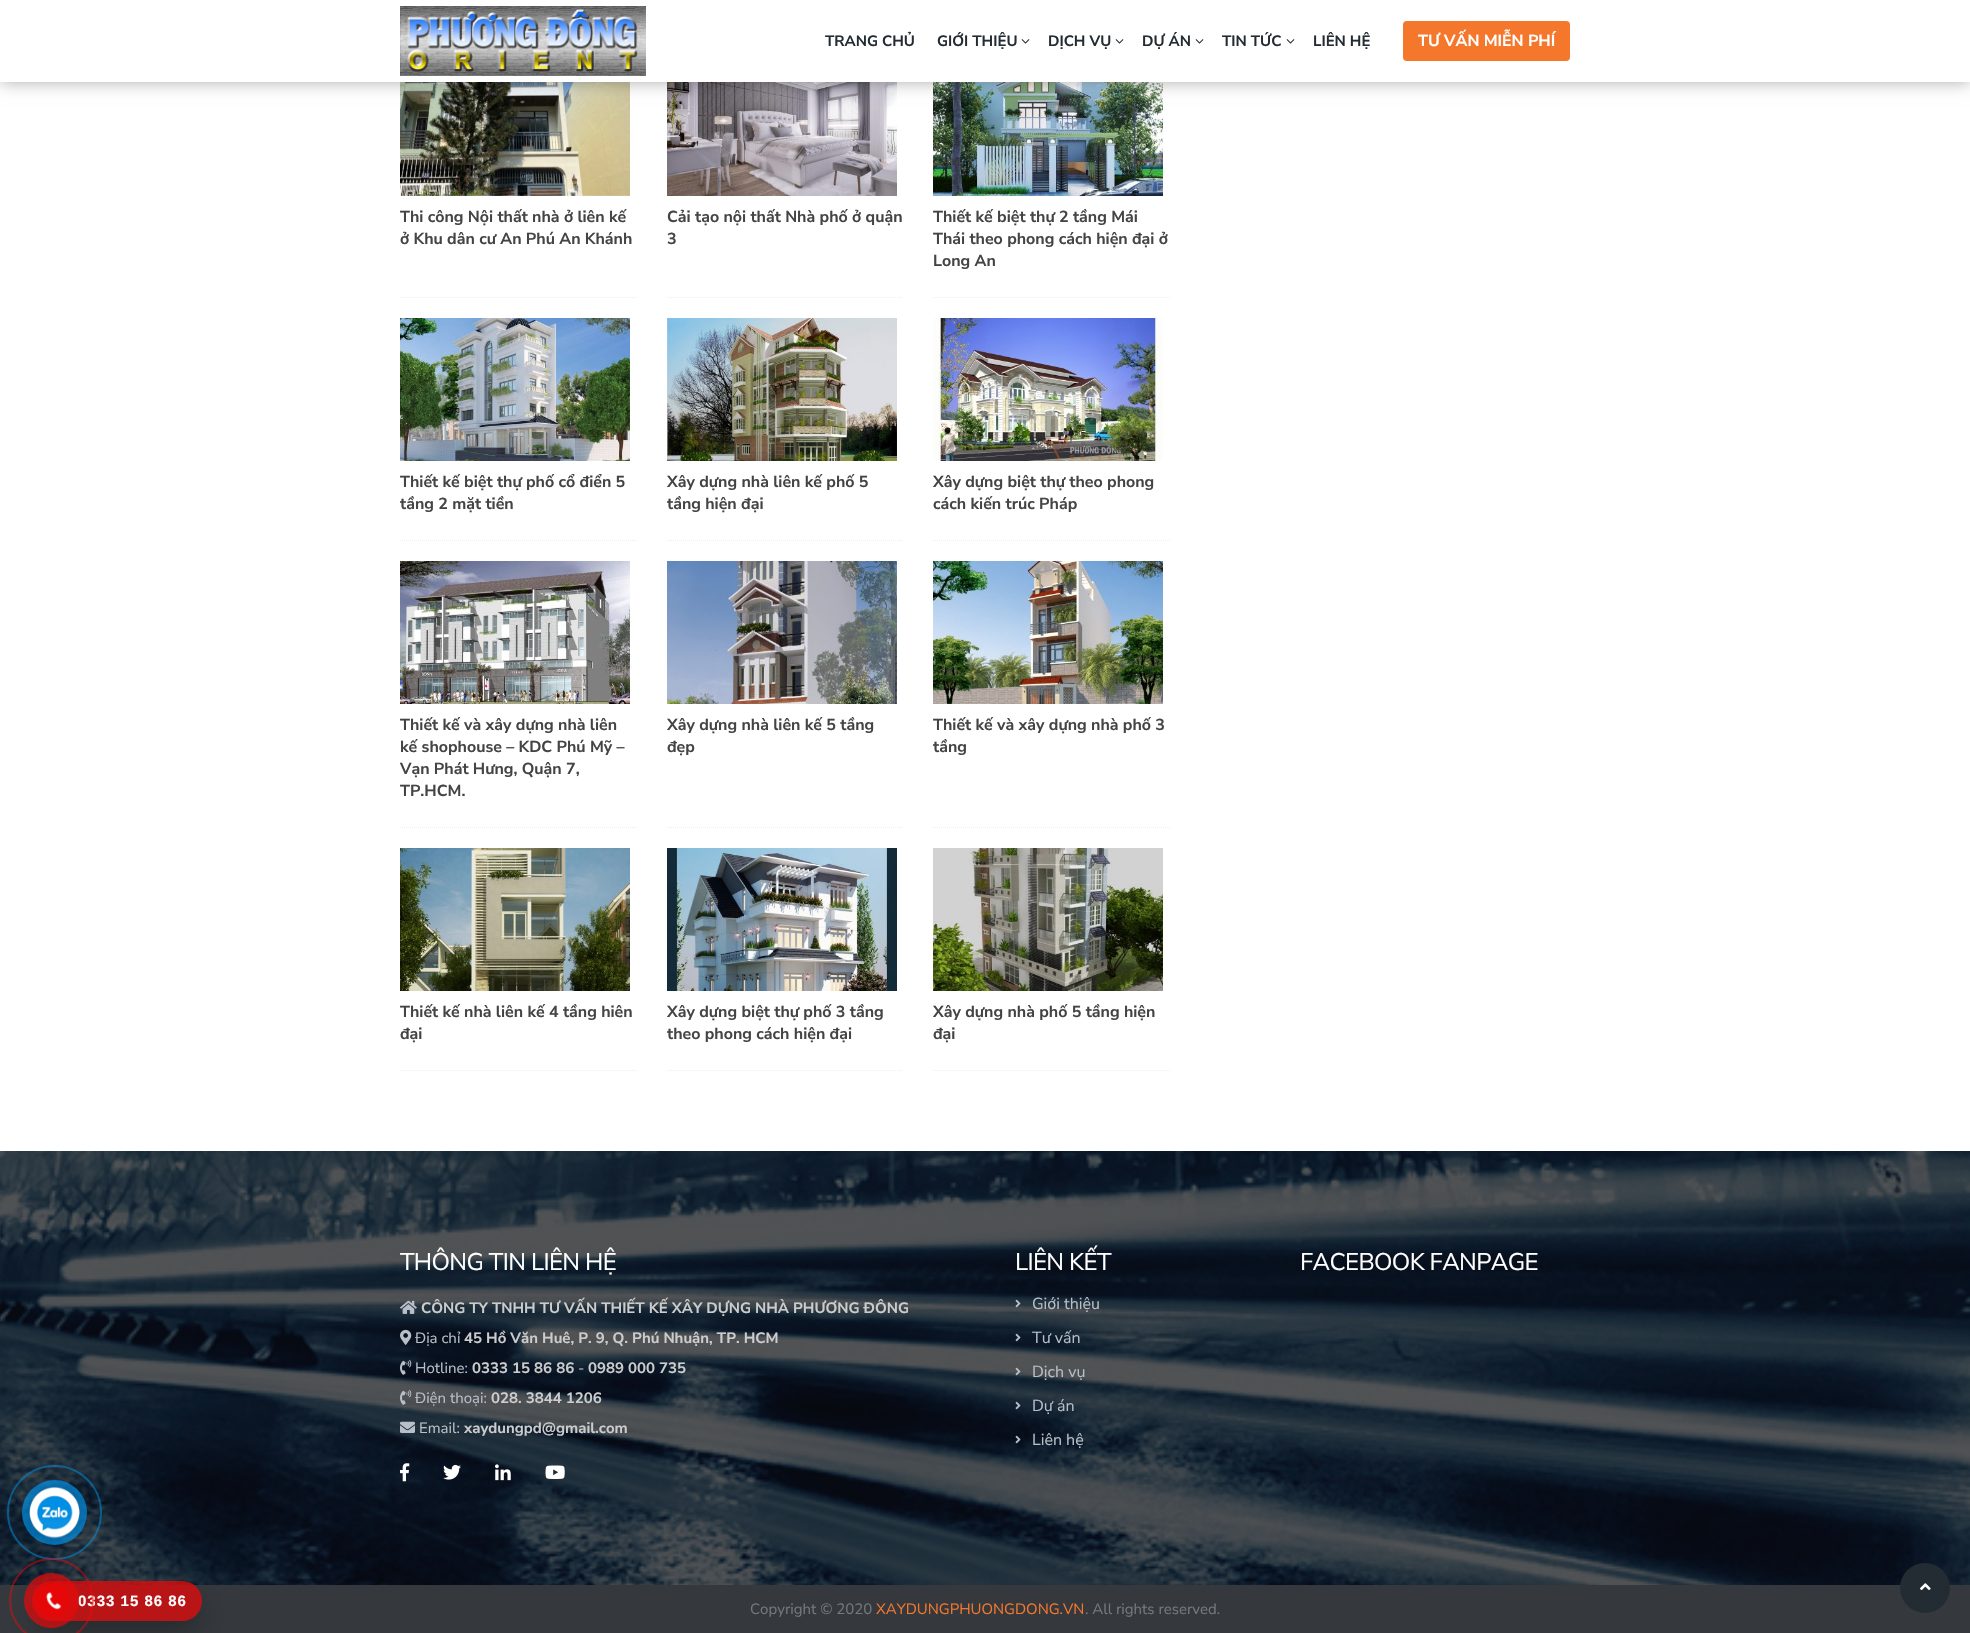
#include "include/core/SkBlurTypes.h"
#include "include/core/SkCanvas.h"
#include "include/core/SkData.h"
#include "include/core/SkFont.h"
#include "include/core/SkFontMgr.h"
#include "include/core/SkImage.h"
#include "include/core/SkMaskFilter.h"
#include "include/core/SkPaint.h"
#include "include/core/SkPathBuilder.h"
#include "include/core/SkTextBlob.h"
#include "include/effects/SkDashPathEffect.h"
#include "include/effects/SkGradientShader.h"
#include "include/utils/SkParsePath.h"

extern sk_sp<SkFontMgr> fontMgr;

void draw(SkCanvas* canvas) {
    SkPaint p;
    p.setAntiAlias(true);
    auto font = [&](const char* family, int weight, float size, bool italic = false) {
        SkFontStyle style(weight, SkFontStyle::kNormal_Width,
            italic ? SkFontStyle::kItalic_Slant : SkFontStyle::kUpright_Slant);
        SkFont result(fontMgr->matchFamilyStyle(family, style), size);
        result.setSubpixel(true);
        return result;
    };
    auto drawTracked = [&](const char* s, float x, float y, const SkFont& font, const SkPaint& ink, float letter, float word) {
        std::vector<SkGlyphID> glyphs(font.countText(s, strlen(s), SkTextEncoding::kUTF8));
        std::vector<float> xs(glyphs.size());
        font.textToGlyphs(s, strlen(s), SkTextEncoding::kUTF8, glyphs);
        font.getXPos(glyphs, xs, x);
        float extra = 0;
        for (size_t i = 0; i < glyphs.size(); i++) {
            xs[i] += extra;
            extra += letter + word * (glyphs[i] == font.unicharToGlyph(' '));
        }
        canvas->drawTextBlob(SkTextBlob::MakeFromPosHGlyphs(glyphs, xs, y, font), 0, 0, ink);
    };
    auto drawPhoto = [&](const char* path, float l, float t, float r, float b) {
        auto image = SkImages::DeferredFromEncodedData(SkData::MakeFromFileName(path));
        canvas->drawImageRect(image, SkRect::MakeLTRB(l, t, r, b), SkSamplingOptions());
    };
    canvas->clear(0xFFFFFFFF);
    drawPhoto("media/3.png", 400, 82, 630, 196);
    drawPhoto("media/4.png", 667, 82, 897, 196);
    drawPhoto("media/5.png", 933, 82, 1163, 196);
    p.setColor(0x52000000);
    p.setMaskFilter(SkMaskFilter::MakeBlur(kNormal_SkBlurStyle, 8));
    canvas->drawRect(SkRect::MakeLTRB(0, 0, 1970, 82), p);
    p.setMaskFilter(nullptr);
    p.setColor(0xFFFFFFFF);
    canvas->drawRect(SkRect::MakeLTRB(0, 0, 1970, 82), p);
    drawPhoto("media/1.png", 400, 6, 646, 76);
    auto font1 = font("Nunito Sans", 700, 15);
    p.setColor(0xFF242C33);
    canvas->drawString("TRANG CHỦ", 825, 46, font1, p);
    canvas->drawString("GIỚI THIỆU", 937, 46, font1, p);
    drawPhoto("media/2.png", 1021, 39, 1030, 44);
    canvas->drawString("DỊCH VỤ", 1048, 46, font1, p);
    drawPhoto("media/2.png", 1115, 39, 1124, 44);
    canvas->drawString("DỰ ÁN", 1142, 46, font1, p);
    drawPhoto("media/2.png", 1195, 39, 1204, 44);
    canvas->drawString("TIN TỨC", 1222, 46, font1, p);
    drawPhoto("media/2.png", 1286, 39, 1295, 44);
    canvas->drawString("LIÊN HỆ", 1313, 46, font1, p);
    p.setColor(0xFFF4772C);
    canvas->drawRoundRect(SkRect::MakeLTRB(1403, 21, 1570, 61), 4, 4, p);
    auto font2 = font("Nunito Sans", 700, 16);
    p.setColor(0xFFFFFFFF);
    canvas->drawString("TƯ VẤN MIỄN PHÍ", 1418, 46, font2, p);
    p.setStyle(SkPaint::kStroke_Style);
    p.setStrokeWidth(1);
    p.setColor(0xFFEEEEEE);
    p.setPathEffect(SkDashPathEffect::Make({{1, 1}}, 0));
    canvas->drawPath(SkPathBuilder().moveTo(400, 297.5f).lineTo(637, 297.5f).detach(), p);
    p.setPathEffect(nullptr);
    p.setStyle(SkPaint::kFill_Style);
    p.setColor(0xFF444444);
    canvas->drawString("Thi công Nội thất nhà ở liên kế", 400, 222, font2, p);
    canvas->drawString("ở Khu dân cư An Phú An Khánh", 400, 244, font2, p);
    p.setStyle(SkPaint::kStroke_Style);
    p.setColor(0xFFEEEEEE);
    p.setPathEffect(SkDashPathEffect::Make({{1, 1}}, 0));
    canvas->drawPath(SkPathBuilder().moveTo(667, 297.5f).lineTo(903, 297.5f).detach(), p);
    p.setPathEffect(nullptr);
    p.setStyle(SkPaint::kFill_Style);
    p.setColor(0xFF444444);
    canvas->drawString("Cải tạo nội thất Nhà phố ở quận", 667, 222, font2, p);
    canvas->drawString("3", 667, 244, font2, p);
    p.setStyle(SkPaint::kStroke_Style);
    p.setColor(0xFFEEEEEE);
    p.setPathEffect(SkDashPathEffect::Make({{1, 1}}, 0));
    canvas->drawPath(SkPathBuilder().moveTo(933, 297.5f).lineTo(1170, 297.5f).detach(), p);
    p.setPathEffect(nullptr);
    p.setStyle(SkPaint::kFill_Style);
    p.setColor(0xFF444444);
    {
        const struct { const char* s; float x, y; } items[] = {
            {"Thiết kế biệt thự 2 tầng Mái", 933, 222},
            {"Thái theo phong cách hiện đại ở", 933, 244},
            {"Long An", 933, 266},
        };
        for (auto [s, x, y] : items) {
            canvas->drawString(s, x, y, font2, p);
        }
    }
    p.setStyle(SkPaint::kStroke_Style);
    p.setColor(0xFFEEEEEE);
    p.setPathEffect(SkDashPathEffect::Make({{1, 1}}, 0));
    canvas->drawPath(SkPathBuilder().moveTo(400, 540.5f).lineTo(637, 540.5f).detach(), p);
    p.setPathEffect(nullptr);
    drawPhoto("media/6.png", 400, 318, 630, 461);
    p.setStyle(SkPaint::kFill_Style);
    p.setColor(0xFF444444);
    canvas->drawString("Thiết kế biệt thự phố cổ điển 5", 400, 487, font2, p);
    canvas->drawString("tầng 2 mặt tiền", 400, 509, font2, p);
    p.setStyle(SkPaint::kStroke_Style);
    p.setColor(0xFFEEEEEE);
    p.setPathEffect(SkDashPathEffect::Make({{1, 1}}, 0));
    canvas->drawPath(SkPathBuilder().moveTo(667, 540.5f).lineTo(903, 540.5f).detach(), p);
    p.setPathEffect(nullptr);
    drawPhoto("media/7.png", 667, 318, 897, 461);
    p.setStyle(SkPaint::kFill_Style);
    p.setColor(0xFF444444);
    canvas->drawString("Xây dựng nhà liên kế phố 5", 667, 487, font2, p);
    canvas->drawString("tầng hiện đại", 667, 509, font2, p);
    p.setStyle(SkPaint::kStroke_Style);
    p.setColor(0xFFEEEEEE);
    p.setPathEffect(SkDashPathEffect::Make({{1, 1}}, 0));
    canvas->drawPath(SkPathBuilder().moveTo(933, 540.5f).lineTo(1170, 540.5f).detach(), p);
    p.setPathEffect(nullptr);
    drawPhoto("media/8.png", 933, 318, 1163, 461);
    p.setStyle(SkPaint::kFill_Style);
    p.setColor(0xFF444444);
    canvas->drawString("Xây dựng biệt thự theo phong", 933, 487, font2, p);
    canvas->drawString("cách kiến trúc Pháp", 933, 509, font2, p);
    p.setStyle(SkPaint::kStroke_Style);
    p.setColor(0xFFEEEEEE);
    p.setPathEffect(SkDashPathEffect::Make({{1, 1}}, 0));
    canvas->drawPath(SkPathBuilder().moveTo(400, 827.5f).lineTo(637, 827.5f).detach(), p);
    p.setPathEffect(nullptr);
    drawPhoto("media/9.png", 400, 561, 630, 704);
    p.setStyle(SkPaint::kFill_Style);
    p.setColor(0xFF444444);
    {
        const struct { const char* s; float x, y; } items[] = {
            {"Thiết kế và xây dựng nhà liên", 400, 730},
            {"kế shophouse – KDC Phú Mỹ –", 400, 752},
            {"Vạn Phát Hưng, Quận 7,", 400, 774},
            {"TP.HCM.", 400, 796},
        };
        for (auto [s, x, y] : items) {
            canvas->drawString(s, x, y, font2, p);
        }
    }
    p.setStyle(SkPaint::kStroke_Style);
    p.setColor(0xFFEEEEEE);
    p.setPathEffect(SkDashPathEffect::Make({{1, 1}}, 0));
    canvas->drawPath(SkPathBuilder().moveTo(667, 827.5f).lineTo(903, 827.5f).detach(), p);
    p.setPathEffect(nullptr);
    drawPhoto("media/10.png", 667, 561, 897, 704);
    p.setStyle(SkPaint::kFill_Style);
    p.setColor(0xFF444444);
    canvas->drawString("Xây dựng nhà liên kế 5 tầng", 667, 730, font2, p);
    canvas->drawString("đẹp", 667, 752, font2, p);
    p.setStyle(SkPaint::kStroke_Style);
    p.setColor(0xFFEEEEEE);
    p.setPathEffect(SkDashPathEffect::Make({{1, 1}}, 0));
    canvas->drawPath(SkPathBuilder().moveTo(933, 827.5f).lineTo(1170, 827.5f).detach(), p);
    p.setPathEffect(nullptr);
    drawPhoto("media/11.png", 933, 561, 1163, 704);
    p.setStyle(SkPaint::kFill_Style);
    p.setColor(0xFF444444);
    canvas->drawString("Thiết kế và xây dựng nhà phố 3", 933, 730, font2, p);
    canvas->drawString("tầng", 933, 752, font2, p);
    p.setStyle(SkPaint::kStroke_Style);
    p.setColor(0xFFEEEEEE);
    p.setPathEffect(SkDashPathEffect::Make({{1, 1}}, 0));
    canvas->drawPath(SkPathBuilder().moveTo(400, 1070.5f).lineTo(637, 1070.5f).detach(), p);
    p.setPathEffect(nullptr);
    drawPhoto("media/12.png", 400, 848, 630, 991);
    p.setStyle(SkPaint::kFill_Style);
    p.setColor(0xFF444444);
    canvas->drawString("Thiết kế nhà liên kế 4 tầng hiên", 400, 1017, font2, p);
    canvas->drawString("đại", 400, 1039, font2, p);
    p.setStyle(SkPaint::kStroke_Style);
    p.setColor(0xFFEEEEEE);
    p.setPathEffect(SkDashPathEffect::Make({{1, 1}}, 0));
    canvas->drawPath(SkPathBuilder().moveTo(667, 1070.5f).lineTo(903, 1070.5f).detach(), p);
    p.setPathEffect(nullptr);
    drawPhoto("media/13.png", 667, 848, 897, 991);
    p.setStyle(SkPaint::kFill_Style);
    p.setColor(0xFF444444);
    canvas->drawString("Xây dựng biệt thự phố 3 tầng", 667, 1017, font2, p);
    canvas->drawString("theo phong cách hiện đại", 667, 1039, font2, p);
    p.setStyle(SkPaint::kStroke_Style);
    p.setColor(0xFFEEEEEE);
    p.setPathEffect(SkDashPathEffect::Make({{1, 1}}, 0));
    canvas->drawPath(SkPathBuilder().moveTo(933, 1070.5f).lineTo(1170, 1070.5f).detach(), p);
    p.setPathEffect(nullptr);
    drawPhoto("media/14.png", 933, 848, 1163, 991);
    p.setStyle(SkPaint::kFill_Style);
    p.setColor(0xFF444444);
    canvas->drawString("Xây dựng nhà phố 5 tầng hiện", 933, 1017, font2, p);
    canvas->drawString("đại", 933, 1039, font2, p);
    drawPhoto("media/15.png", 0, 1151, 1970, 1585);
    auto font3 = font("Nunito Sans", 400, 24);
    p.setColor(0xFFFFFFFF);
    drawTracked("THÔNG TIN LIÊN HỆ", 400, 1270, font3, p, -0.6f, 0);
    drawPhoto("media/16.png", 400, 1300, 417, 1314);
    p.setColor(0xFFCCCCCC);
    canvas->drawString("CÔNG TY TNHH TƯ VẤN THIẾT KẾ XÂY DỰNG NHÀ PHƯƠNG ĐÔNG", 421, 1313, font1, p);
    drawPhoto("media/17.png", 400, 1329, 412, 1345);
    auto font4 = font("Nunito Sans", 400, 15);
    p.setColor(0xFFB8BFC8);
    canvas->drawString("Địa chỉ", 415, 1343, font4, p);
    p.setColor(0xFFCCCCCC);
    canvas->drawString("45 Hồ Văn Huê, P. 9, Q. Phú Nhuận, TP. HCM", 464, 1343, font1, p);
    drawPhoto("media/18.png", 400, 1359, 412, 1375);
    p.setColor(0xFFB8BFC8);
    canvas->drawString("Hotline:", 415, 1373, font4, p);
    p.setColor(0xFFCCCCCC);
    canvas->drawString("0333 15 86 86", 472, 1373, font1, p);
    p.setColor(0xFFB8BFC8);
    canvas->drawString("-", 578, 1373, font4, p);
    p.setColor(0xFFCCCCCC);
    canvas->drawString("0989 000 735", 588, 1373, font1, p);
    drawPhoto("media/19.png", 400, 1389, 412, 1405);
    p.setColor(0xFFB8BFC8);
    canvas->drawString("Điện thoại:", 415, 1403, font4, p);
    p.setColor(0xFFCCCCCC);
    canvas->drawString("028. 3844 1206", 491, 1403, font1, p);
    drawPhoto("media/20.png", 400, 1421, 415, 1433);
    p.setColor(0xFFB8BFC8);
    canvas->drawString("Email:", 419, 1433, font4, p);
    p.setColor(0xFFCCCCCC);
    canvas->drawString("xaydungpd@gmail.com", 464, 1433, font1, p);
    drawPhoto("media/21.png", 400, 1463, 410, 1482);
    drawPhoto("media/22.png", 443, 1464, 461, 1480);
    drawPhoto("media/23.png", 495, 1464, 511, 1481);
    drawPhoto("media/24.png", 545, 1465, 565, 1479);
    p.setColor(0xFFFFFFFF);
    drawTracked("LIÊN KẾT", 1015, 1270, font3, p, -0.6f, 0);
    drawPhoto("media/25.png", 1015, 1299, 1021, 1308);
    auto font5 = font("Nunito Sans", 400, 16);
    p.setColor(0xFFB8BFC8);
    canvas->drawString("Giới thiệu", 1032, 1309, font5, p);
    drawPhoto("media/26.png", 1015, 1333, 1021, 1342);
    canvas->drawString("Tư vấn", 1032, 1343, font5, p);
    drawPhoto("media/27.png", 1015, 1367, 1021, 1376);
    canvas->drawString("Dịch vụ", 1032, 1377, font5, p);
    drawPhoto("media/28.png", 1015, 1401, 1021, 1410);
    canvas->drawString("Dự án", 1032, 1411, font5, p);
    drawPhoto("media/29.png", 1015, 1435, 1021, 1444);
    canvas->drawString("Liên hệ", 1032, 1445, font5, p);
    p.setColor(0xFFFFFFFF);
    drawTracked("FACEBOOK FANPAGE", 1300, 1270, font3, p, -0.6f, 0);
    p.setStyle(SkPaint::kStroke_Style);
    p.setStrokeWidth(2);
    p.setColor(0x80008FE6);
    canvas->drawCircle(54.5f, 1512.5f, 46.5f, p);
    p.setStyle(SkPaint::kFill_Style);
    p.setColor(0xB3008FE6);
    canvas->drawCircle(54.5f, 1512.5f, 32.5f, p);
    drawPhoto("media/30.png", 25, 1483, 85, 1542);
    p.setColor(0xFF35393D);
    canvas->drawRect(SkRect::MakeLTRB(0, 1585, 1970, 1633), p);
    canvas->save();
    canvas->clipPath(SkPathBuilder(SkPathFillType::kEvenOdd).moveTo(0, 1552).lineTo(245, 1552).lineTo(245, 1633).lineTo(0, 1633).close().moveTo(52, 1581).lineTo(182, 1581).cubicTo(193, 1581, 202, 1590, 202, 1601).cubicTo(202, 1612, 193, 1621, 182, 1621).lineTo(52, 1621).cubicTo(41, 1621, 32, 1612, 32, 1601).cubicTo(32, 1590, 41, 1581, 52, 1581).close().detach(), true);
    p.setColor(0x40000000);
    p.setMaskFilter(SkMaskFilter::MakeBlur(kNormal_SkBlurStyle, 14));
    canvas->drawRoundRect(SkRect::MakeLTRB(32, 1595, 202, 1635), 20, 20, p);
    p.setMaskFilter(nullptr);
    canvas->restore();
    p.setColor(0xBFE60808);
    canvas->drawRoundRect(SkRect::MakeLTRB(32, 1581, 202, 1621), 20, 20, p);
    auto font6 = font("Liberation Sans", 700, 15);
    p.setColor(0xFFFFFFFF);
    drawTracked("0333 15 86 86", 78, 1606, font6, p, 1, 0);
    p.setStyle(SkPaint::kStroke_Style);
    p.setColor(0x80E60808);
    canvas->drawCircle(51.5f, 1600.5f, 41.5f, p);
    p.setStyle(SkPaint::kFill_Style);
    p.setColor(0xB3E60808);
    canvas->drawCircle(51.5f, 1600.5f, 27.5f, p);
    p.setColor(0xFFE60808);
    canvas->drawCircle(52.5f, 1600.5f, 16.5f, p);
    drawPhoto("media/31.png", 46, 1592, 62, 1610);
    p.setColor(0xFF242C33);
    canvas->drawCircle(1925, 1588, 25, p);
    drawPhoto("media/32.png", 1920, 1583, 1931, 1590);
    p.setColor(0xFF74787D);
    canvas->drawString("Copyright © 2020", 750, 1614, font4, p);
    p.setColor(0xFFF4772C);
    canvas->drawString("XAYDUNGPHUONGDONG.VN", 876, 1614, font4, p);
    p.setColor(0xFF74787D);
    canvas->drawString(". All rights reserved.", 1085, 1614, font4, p);
}
